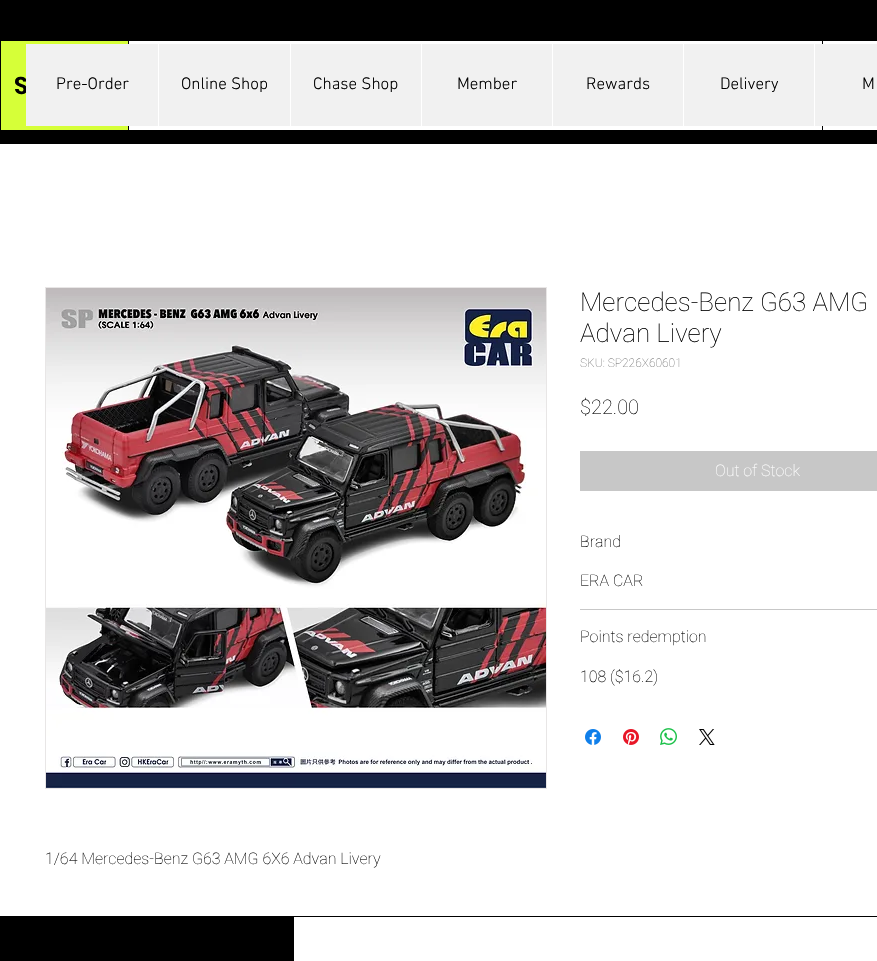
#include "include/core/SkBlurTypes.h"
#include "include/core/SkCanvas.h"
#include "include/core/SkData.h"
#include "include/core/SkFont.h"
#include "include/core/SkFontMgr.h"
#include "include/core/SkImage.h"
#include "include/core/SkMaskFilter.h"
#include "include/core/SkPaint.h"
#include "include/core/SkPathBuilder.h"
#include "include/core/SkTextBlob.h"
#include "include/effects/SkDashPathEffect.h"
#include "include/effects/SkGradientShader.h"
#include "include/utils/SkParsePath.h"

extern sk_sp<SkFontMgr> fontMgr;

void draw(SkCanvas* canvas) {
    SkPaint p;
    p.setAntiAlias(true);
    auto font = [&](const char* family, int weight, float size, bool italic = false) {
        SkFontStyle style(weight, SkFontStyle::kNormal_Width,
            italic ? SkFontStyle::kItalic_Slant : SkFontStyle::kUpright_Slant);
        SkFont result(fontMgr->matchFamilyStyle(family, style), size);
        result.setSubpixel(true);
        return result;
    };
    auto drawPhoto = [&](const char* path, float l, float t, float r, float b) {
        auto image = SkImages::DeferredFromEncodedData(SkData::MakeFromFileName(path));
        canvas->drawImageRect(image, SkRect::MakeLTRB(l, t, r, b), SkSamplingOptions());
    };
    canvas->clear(0xFFFFFFFF);
    p.setColor(0xFF000000);
    canvas->drawRect(SkRect::MakeLTRB(0, 0, 877, 144), p);
    p.setColor(0xFFD6FF38);
    canvas->drawRect(SkRect::MakeLTRB(1, 41, 128, 130), p);
    auto font1 = font("Poppins", 600, 24);
    p.setColor(0xFF000000);
    canvas->drawString("S", 14, 94, font1, p);
    {
        const struct { float l, t, r, b; SkColor color; } items[] = {
            {129, 41, 822, 130, 0xFFFFFFFF},
            {823, 41, 877, 130, 0xFFFFFFFF},
            {26, 44, 877, 126, 0xFFF1F1F1},
        };
        for (auto [l, t, r, b, color] : items) {
            p.setColor(color);
            canvas->drawRect(SkRect::MakeLTRB(l, t, r, b), p);
        }
    }
    auto font2 = font("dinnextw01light", 300, 17);
    p.setColor(0xFF000000);
    canvas->drawString("Pre-Order", 56, 89, font2, p);
    p.setColor(0xFFFFFFFF);
    canvas->drawRect(SkRect::MakeLTRB(158, 44, 159, 126), p);
    p.setColor(0xFF000000);
    canvas->drawString("Online Shop", 181, 89, font2, p);
    p.setColor(0xFFFFFFFF);
    canvas->drawRect(SkRect::MakeLTRB(290, 44, 291, 126), p);
    p.setColor(0xFF000000);
    canvas->drawString("Chase Shop", 313, 89, font2, p);
    p.setColor(0xFFFFFFFF);
    canvas->drawRect(SkRect::MakeLTRB(421, 44, 422, 126), p);
    p.setColor(0xFF000000);
    canvas->drawString("Member", 457, 89, font2, p);
    p.setColor(0xFFFFFFFF);
    canvas->drawRect(SkRect::MakeLTRB(552, 44, 553, 126), p);
    p.setColor(0xFF000000);
    canvas->drawString("Rewards", 586, 89, font2, p);
    p.setColor(0xFFFFFFFF);
    canvas->drawRect(SkRect::MakeLTRB(683, 44, 684, 126), p);
    p.setColor(0xFF000000);
    canvas->drawString("Delivery", 720, 89, font2, p);
    p.setColor(0xFFFFFFFF);
    canvas->drawRect(SkRect::MakeLTRB(814, 44, 815, 126), p);
    p.setColor(0xFF000000);
    canvas->drawString("M", 862, 89, font2, p);
    auto font3 = font("Roboto", 100, 26);
    canvas->drawString("Mercedes-Benz G63 AMG", 580, 311, font3, p);
    canvas->drawString("Advan Livery", 580, 342, font3, p);
    auto font4 = font("Roboto", 100, 12);
    p.setColor(0xFF757575);
    canvas->drawString("SKU: SP226X60601", 580, 367, font4, p);
    auto font5 = font("Roboto", 100, 20);
    p.setColor(0xFF000000);
    canvas->drawString("$22.00", 580, 414, font5, p);
    p.setColor(0xFFC7C7C7);
    canvas->drawRect(SkRect::MakeLTRB(580, 451, 877, 491), p);
    auto font6 = font("Roboto", 100, 16);
    p.setColor(0xFFFFFFFF);
    canvas->drawString("Out of Stock", 715, 476, font6, p);
    p.setColor(0xFFC7C7C7);
    canvas->drawRect(SkRect::MakeLTRB(580, 609, 877, 610), p);
    p.setColor(0xFF000000);
    {
        const struct { const char* s; float x, y; } items[] = {
            {"Brand", 580, 547},
            {"ERA CAR", 580, 586},
            {"Points redemption", 580, 642},
            {"108 ($16.2)", 580, 682},
        };
        for (auto [s, x, y] : items) {
            canvas->drawString(s, x, y, font6, p);
        }
    }
    drawPhoto("media/1.png", 585, 729, 601, 745);
    drawPhoto("media/2.png", 623, 729, 639, 745);
    drawPhoto("media/3.png", 660, 728, 677, 745);
    drawPhoto("media/4.png", 699, 729, 715, 745);
    p.setStyle(SkPaint::kStroke_Style);
    p.setStrokeWidth(1);
    p.setColor(0xFFE8E6E6);
    canvas->drawRect(SkRect::MakeLTRB(45.5f, 287.5f, 546.5f, 788.5f), p);
    drawPhoto("media/5.png", 46, 288, 546, 788);
    p.setStyle(SkPaint::kFill_Style);
    p.setColor(0xFF000000);
    canvas->drawString("1/64 Mercedes-Benz G63 AMG 6X6 Advan Livery", 45, 864, font6, p);
    canvas->drawRect(SkRect::MakeLTRB(0, 916, 877, 961), p);
    p.setColor(0xFFFFFFFF);
    canvas->drawRect(SkRect::MakeLTRB(294, 917, 877, 961), p);
}
